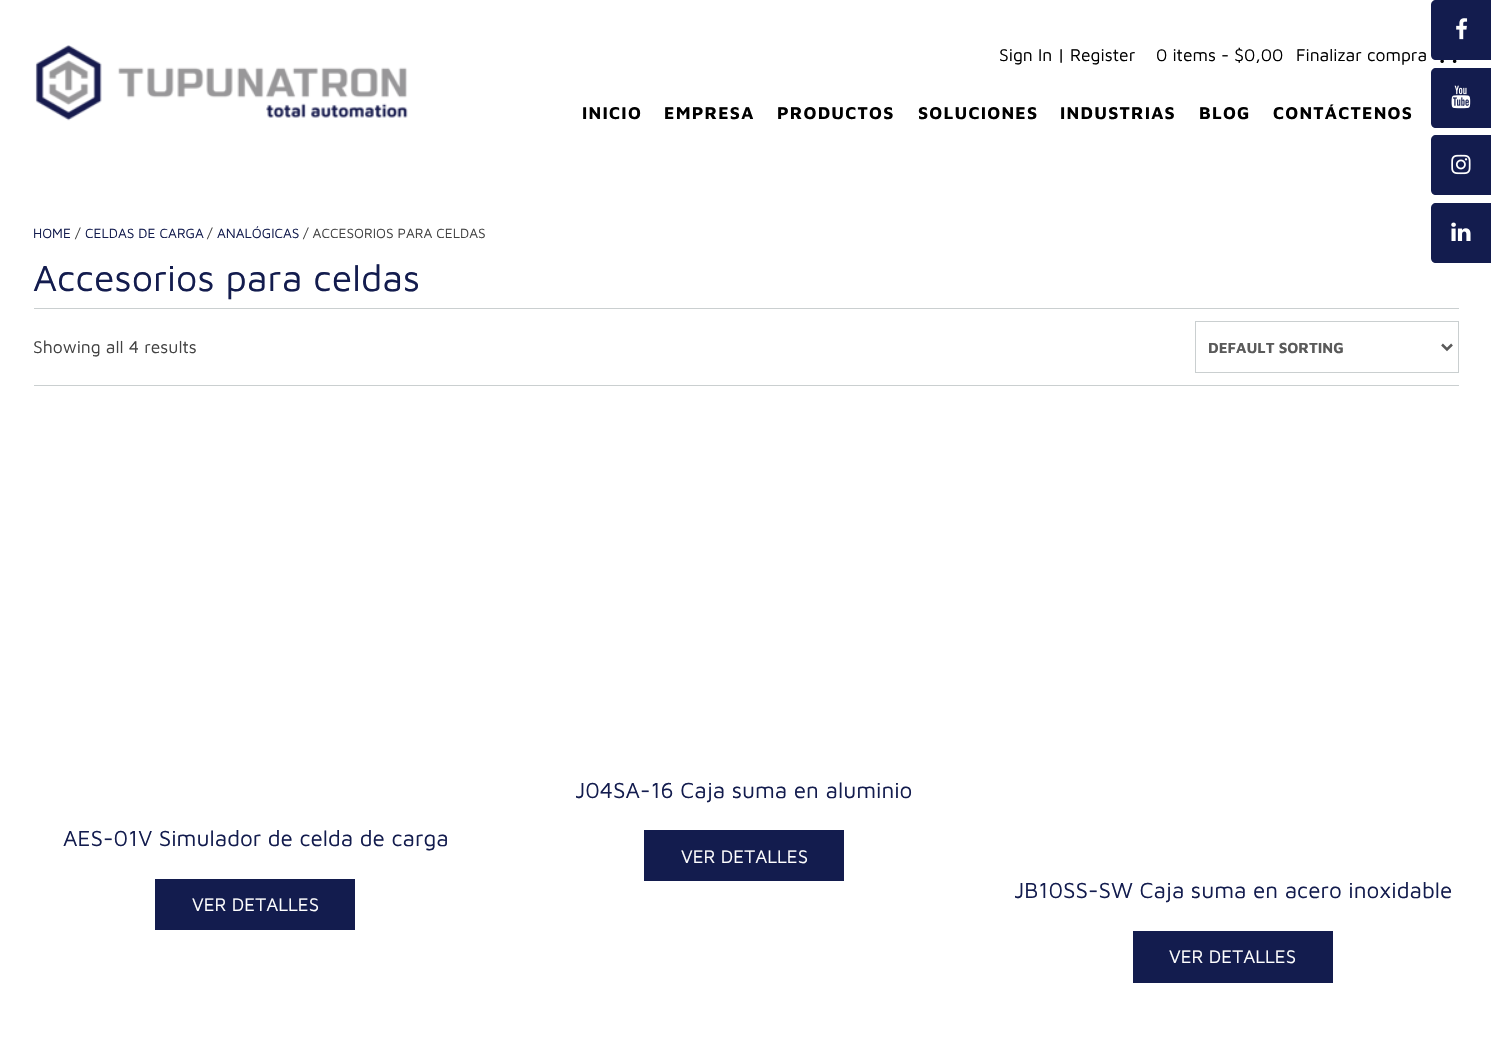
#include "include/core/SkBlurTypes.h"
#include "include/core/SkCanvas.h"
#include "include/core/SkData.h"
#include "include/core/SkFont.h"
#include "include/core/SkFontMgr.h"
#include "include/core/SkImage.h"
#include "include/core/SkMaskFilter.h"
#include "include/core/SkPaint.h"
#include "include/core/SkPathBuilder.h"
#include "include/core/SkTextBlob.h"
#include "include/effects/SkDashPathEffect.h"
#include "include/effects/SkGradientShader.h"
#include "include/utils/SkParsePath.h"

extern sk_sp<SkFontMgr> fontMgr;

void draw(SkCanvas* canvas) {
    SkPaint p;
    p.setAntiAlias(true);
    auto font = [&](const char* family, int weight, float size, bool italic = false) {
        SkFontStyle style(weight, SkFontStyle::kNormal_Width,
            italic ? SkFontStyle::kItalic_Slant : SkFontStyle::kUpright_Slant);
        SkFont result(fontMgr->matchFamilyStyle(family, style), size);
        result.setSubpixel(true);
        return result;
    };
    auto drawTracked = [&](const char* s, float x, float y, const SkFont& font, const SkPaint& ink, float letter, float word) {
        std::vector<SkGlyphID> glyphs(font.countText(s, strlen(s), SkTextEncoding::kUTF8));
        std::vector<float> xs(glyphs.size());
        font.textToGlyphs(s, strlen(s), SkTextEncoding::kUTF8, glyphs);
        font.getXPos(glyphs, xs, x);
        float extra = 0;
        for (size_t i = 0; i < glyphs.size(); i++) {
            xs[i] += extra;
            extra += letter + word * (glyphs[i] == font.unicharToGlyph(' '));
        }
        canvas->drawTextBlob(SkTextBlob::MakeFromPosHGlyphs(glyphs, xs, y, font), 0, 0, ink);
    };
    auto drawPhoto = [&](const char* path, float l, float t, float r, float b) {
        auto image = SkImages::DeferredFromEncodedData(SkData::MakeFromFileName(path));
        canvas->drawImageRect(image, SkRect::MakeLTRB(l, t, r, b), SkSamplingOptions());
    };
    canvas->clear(0xFFFFFFFF);
    drawPhoto("media/1.png", 35, 45, 408, 121);
    auto font1 = font("Maven Pro", 400, 17.5f);
    p.setColor(0xFF000000);
    {
        const struct { const char* s; float x, y; } items[] = {
            {"Sign In | Register", 999, 61},
            {"0 items - $0,00", 1156, 61},
            {"Finalizar compra", 1296, 61},
        };
        for (auto [s, x, y] : items) {
            canvas->drawString(s, x, y, font1, p);
        }
    }
    drawPhoto("media/2.png", 1440, 60, 1457, 63);
    auto font2 = font("Maven Pro", 700, 17.5f);
    {
        const struct { const char* s; float x, y; } items[] = {
            {"INICIO", 582, 119},
            {"EMPRESA", 664, 119},
            {"PRODUCTOS", 777, 119},
            {"SOLUCIONES", 918, 119},
            {"INDUSTRIAS", 1060, 119},
            {"BLOG", 1199, 119},
            {"CONTÁCTENOS", 1273, 119},
        };
        for (auto [s, x, y] : items) {
            drawTracked(s, x, y, font2, p, 1.25f, 0);
        }
    }
    p.setColor(0xFF131C4E);
    canvas->drawPath(SkPathBuilder().moveTo(1436, 0).lineTo(1491, 0).lineTo(1491, 60).lineTo(1436, 60).cubicTo(1433, 60, 1431, 58, 1431, 55).lineTo(1431, 5).cubicTo(1431, 2, 1433, 0, 1436, 0).close().detach(), p);
    drawPhoto("media/3.png", 1456, 18, 1468, 40);
    canvas->drawPath(SkPathBuilder().moveTo(1436, 68).lineTo(1491, 68).lineTo(1491, 128).lineTo(1436, 128).cubicTo(1433, 128, 1431, 126, 1431, 123).lineTo(1431, 73).cubicTo(1431, 70, 1433, 68, 1436, 68).close().detach(), p);
    drawPhoto("media/4.png", 1451, 85, 1471, 109);
    canvas->drawPath(SkPathBuilder().moveTo(1436, 135).lineTo(1491, 135).lineTo(1491, 195).lineTo(1436, 195).cubicTo(1433, 195, 1431, 193, 1431, 190).lineTo(1431, 140).cubicTo(1431, 137, 1433, 135, 1436, 135).close().detach(), p);
    drawPhoto("media/5.png", 1451, 154, 1471, 175);
    canvas->drawPath(SkPathBuilder().moveTo(1436, 203).lineTo(1491, 203).lineTo(1491, 263).lineTo(1436, 263).cubicTo(1433, 263, 1431, 261, 1431, 258).lineTo(1431, 208).cubicTo(1431, 205, 1433, 203, 1436, 203).close().detach(), p);
    drawPhoto("media/6.png", 1451, 222, 1471, 241);
    auto font3 = font("Maven Pro", 400, 13.75f);
    canvas->drawString("HOME", 33, 238, font3, p);
    p.setColor(0xFF424242);
    canvas->drawString("/", 75, 238, font3, p);
    p.setColor(0xFF131C4E);
    canvas->drawString("CELDAS DE CARGA", 85, 238, font3, p);
    p.setColor(0xFF424242);
    canvas->drawString("/", 207, 238, font3, p);
    p.setColor(0xFF131C4E);
    canvas->drawString("ANALÓGICAS", 217, 238, font3, p);
    p.setColor(0xFF424242);
    canvas->drawString("/ ACCESORIOS PARA CELDAS", 303, 238, font3, p);
    auto font4 = font("Maven Pro", 400, 37.5f);
    p.setColor(0xFF131C4E);
    canvas->drawString("Accesorios para celdas", 33, 291, font4, p);
    p.setColor(0xFFCACFD0);
    canvas->drawRect(SkRect::MakeLTRB(34, 308, 746, 309), p);
    canvas->drawRect(SkRect::MakeLTRB(34, 385, 1459, 386), p);
    p.setColor(0xFF424242);
    canvas->drawString("Showing all 4 results", 33, 353, font1, p);
    p.setColor(0xFFCACFD0);
    canvas->drawPath(SkPathBuilder().moveTo(746, 308).lineTo(746, 385).lineTo(746, 309).lineTo(1459, 309).lineTo(1459, 385).lineTo(1459, 308).close().detach(), p);
    p.setStyle(SkPaint::kStroke_Style);
    p.setStrokeWidth(1);
    canvas->drawRect(SkRect::MakeLTRB(1195.5f, 321.5f, 1458.5f, 372.5f), p);
    p.setStrokeWidth(2.5f);
    p.setColor(0xFF5A5A5A);
    canvas->drawPath(SkPathBuilder().moveTo(1442, 344.5f).lineTo(1447, 349.5f).lineTo(1452, 344.5f).detach(), p);
    auto font5 = font("Maven Pro", 700, 15);
    p.setStyle(SkPaint::kFill_Style);
    canvas->drawString("DEFAULT SORTING", 1208, 353, font5, p);
    auto font6 = font("Maven Pro", 400, 22.5f);
    p.setColor(0xFF131C4E);
    canvas->drawString("AES-01V Simulador de celda de carga", 63, 846, font6, p);
    canvas->drawRect(SkRect::MakeLTRB(155, 879, 355, 930), p);
    auto font7 = font("Maven Pro", 400, 18.75f);
    p.setColor(0xFFFFFFFF);
    canvas->drawString("VER DETALLES", 192, 911, font7, p);
    p.setColor(0xFF131C4E);
    canvas->drawString("J04SA-16 Caja suma en aluminio", 575, 798, font6, p);
    canvas->drawRect(SkRect::MakeLTRB(644, 830, 844, 881), p);
    p.setColor(0xFFFFFFFF);
    canvas->drawString("VER DETALLES", 681, 863, font7, p);
    p.setColor(0xFF131C4E);
    canvas->drawString("JB10SS-SW Caja suma en acero inoxidable", 1014, 898, font6, p);
    canvas->drawRect(SkRect::MakeLTRB(1133, 931, 1333, 983), p);
    p.setColor(0xFFFFFFFF);
    canvas->drawString("VER DETALLES", 1169, 963, font7, p);
}
